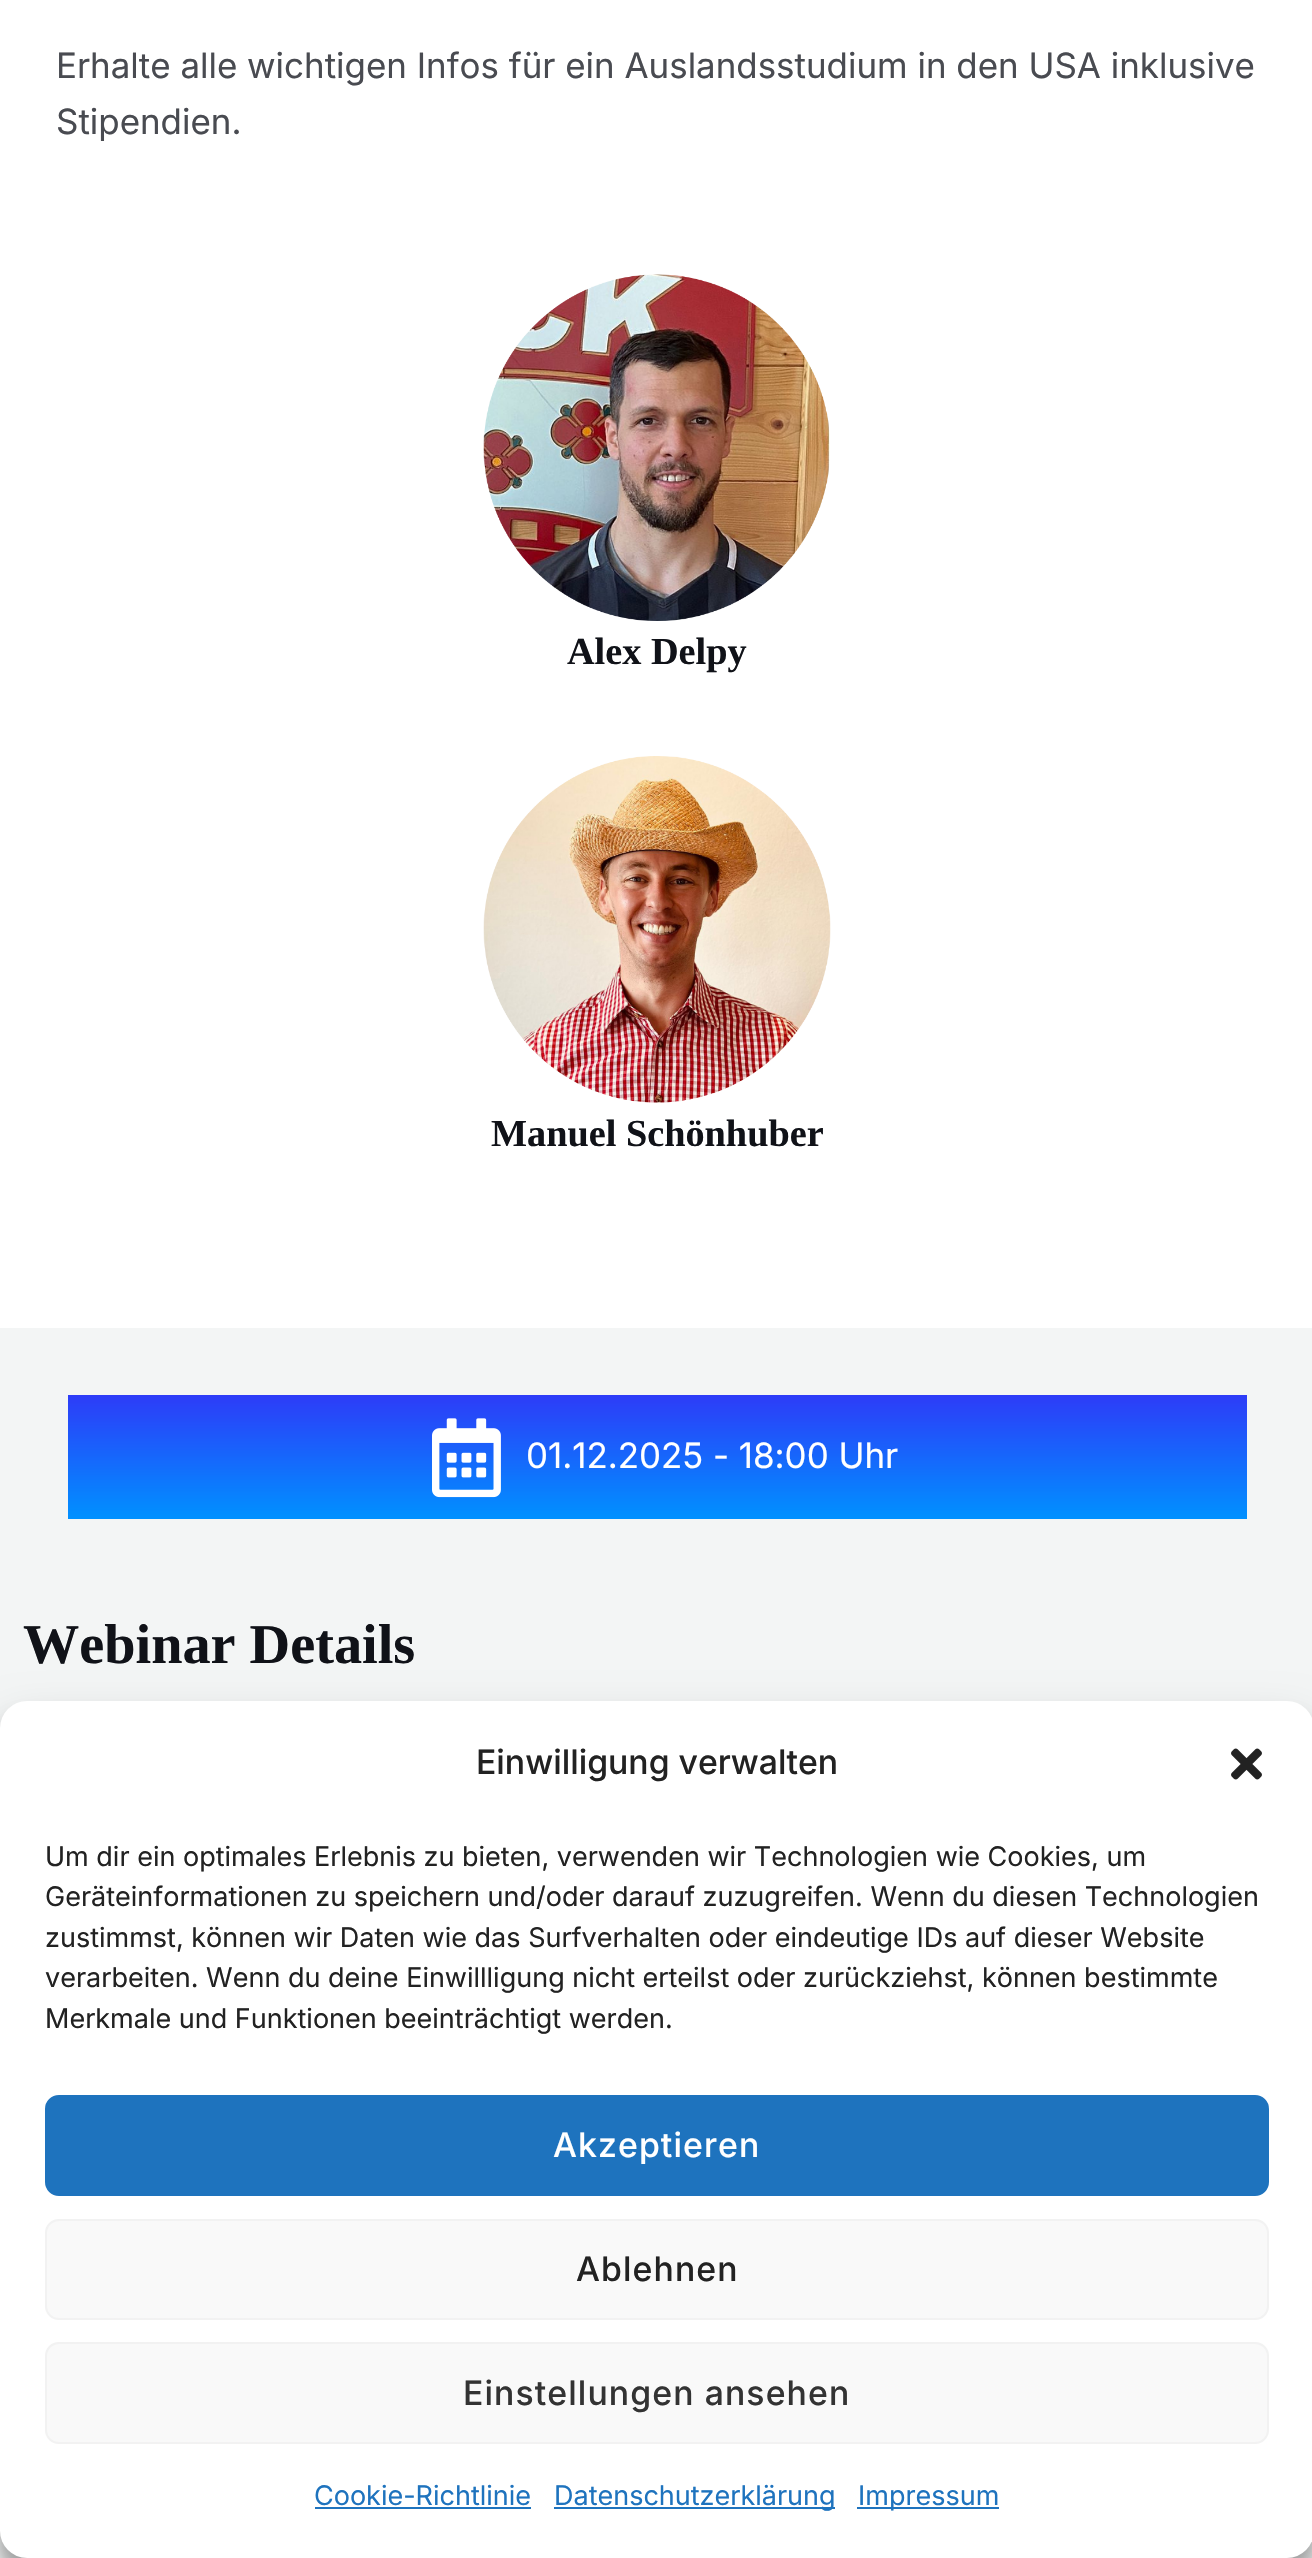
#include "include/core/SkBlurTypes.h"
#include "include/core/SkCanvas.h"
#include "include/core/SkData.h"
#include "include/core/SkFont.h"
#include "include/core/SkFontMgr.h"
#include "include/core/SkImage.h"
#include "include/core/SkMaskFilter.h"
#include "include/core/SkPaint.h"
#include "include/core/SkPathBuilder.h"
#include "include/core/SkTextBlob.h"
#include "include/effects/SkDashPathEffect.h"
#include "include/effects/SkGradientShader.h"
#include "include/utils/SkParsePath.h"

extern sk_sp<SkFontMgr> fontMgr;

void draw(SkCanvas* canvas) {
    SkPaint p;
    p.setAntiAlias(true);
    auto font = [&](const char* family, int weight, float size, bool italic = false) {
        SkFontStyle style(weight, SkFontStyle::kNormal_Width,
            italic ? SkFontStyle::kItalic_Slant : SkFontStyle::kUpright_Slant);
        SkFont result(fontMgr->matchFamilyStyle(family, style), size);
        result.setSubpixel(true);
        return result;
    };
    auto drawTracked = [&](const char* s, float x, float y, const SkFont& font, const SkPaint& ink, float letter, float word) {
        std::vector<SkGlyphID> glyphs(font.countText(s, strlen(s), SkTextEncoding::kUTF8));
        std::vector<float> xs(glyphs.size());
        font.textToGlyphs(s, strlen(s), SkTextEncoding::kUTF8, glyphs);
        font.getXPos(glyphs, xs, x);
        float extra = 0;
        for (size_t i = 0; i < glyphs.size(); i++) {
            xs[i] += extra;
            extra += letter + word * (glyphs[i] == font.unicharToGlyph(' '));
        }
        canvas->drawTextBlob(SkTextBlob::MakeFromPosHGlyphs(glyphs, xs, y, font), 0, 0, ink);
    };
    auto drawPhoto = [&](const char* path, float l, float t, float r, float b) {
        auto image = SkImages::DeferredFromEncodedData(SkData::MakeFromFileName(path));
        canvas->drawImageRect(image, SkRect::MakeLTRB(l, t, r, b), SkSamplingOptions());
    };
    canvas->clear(0xFFF3F5F5);
    p.setColor(0xFFFFFFFF);
    canvas->drawRect(SkRect::MakeLTRB(0, 0, 1312, 1328), p);
    auto font1 = font("Inter", 400, 34.9f);
    p.setColor(0xFF494B51);
    canvas->drawString("Erhalte alle wichtigen Infos für ein Auslandsstudium in den USA inklusive", 56, 78, font1, p);
    canvas->drawString("Stipendien.", 56, 134, font1, p);
    drawPhoto("media/1.png", 483, 274, 830, 621);
    auto font2 = font("Liberation Serif", 700, 38.25f);
    p.setColor(0xFF101218);
    canvas->drawString("Alex Delpy", 567, 664, font2, p);
    drawPhoto("media/2.png", 483, 756, 831, 1103);
    canvas->drawString("Manuel Schönhuber", 491, 1146, font2, p);
    {
        const SkColor colors[] = {0xFF2D3CF8, 0xFF0091FF};
        const float stops[] = {0, 1};
        const SkPoint ends[] = {{657, 1395}, {657, 1519}};
        p.setShader(SkGradientShader::MakeLinear(ends, colors, stops, 2, SkTileMode::kClamp));
        p.setAlpha(255);
    }
    canvas->drawRect(SkRect::MakeLTRB(68, 1395, 1247, 1519), p);
    drawPhoto("media/3.png", 432, 1418, 501, 1498);
    p.setShader(nullptr);
    p.setColor(0xFFFFFFFF);
    canvas->drawString("01.12.2025 - 18:00 Uhr", 526, 1468, font1, p);
    auto font3 = font("Liberation Serif", 700, 56.25f);
    p.setColor(0xFF101218);
    canvas->drawString("Webinar Details", 23, 1663, font3, p);
    p.setColor(0x3B000000);
    p.setMaskFilter(SkMaskFilter::MakeBlur(kNormal_SkBlurStyle, 7));
    canvas->drawRoundRect(SkRect::MakeLTRB(0, 1715, 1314, 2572), 27, 27, p);
    p.setMaskFilter(nullptr);
    p.setColor(0x30000000);
    p.setMaskFilter(SkMaskFilter::MakeBlur(kNormal_SkBlurStyle, 22.5f));
    canvas->drawRoundRect(SkRect::MakeLTRB(0, 1724, 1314, 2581), 27, 27, p);
    p.setMaskFilter(nullptr);
    p.setColor(0xFFFFFFFF);
    canvas->drawRoundRect(SkRect::MakeLTRB(0, 1701, 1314, 2558), 27, 27, p);
    auto font4 = font("Inter", 500, 33.75f);
    p.setColor(0xFF222222);
    canvas->drawString("Einwilligung verwalten", 476, 1774, font4, p);
    drawPhoto("media/4.png", 1231, 1748, 1262, 1780);
    auto font5 = font("Inter", 400, 27);
    {
        const struct { const char* s; float x, y; } items[] = {
            {"Um dir ein optimales Erlebnis zu bieten, verwenden wir Technologien wie Cookies, um", 45, 1866},
            {"Geräteinformationen zu speichern und/oder darauf zuzugreifen. Wenn du diesen Technologien", 45, 1906},
            {"zustimmst, können wir Daten wie das Surfverhalten oder eindeutige IDs auf dieser Website", 45, 1947},
            {"verarbeiten. Wenn du deine Einwillligung nicht erteilst oder zurückziehst, können bestimmte", 45, 1987},
            {"Merkmale und Funktionen beeinträchtigt werden.", 45, 2028},
        };
        for (auto [s, x, y] : items) {
            canvas->drawString(s, x, y, font5, p);
        }
    }
    p.setColor(0xFF1E73BE);
    canvas->drawRoundRect(SkRect::MakeLTRB(46, 2096, 1268, 2195), 13, 13, p);
    p.setStyle(SkPaint::kStroke_Style);
    p.setStrokeWidth(2);
    canvas->drawRoundRect(SkRect::MakeLTRB(46, 2096, 1268, 2195), 13, 13, p);
    p.setStyle(SkPaint::kFill_Style);
    p.setColor(0xFFFFFFFF);
    drawTracked("Akzeptieren", 553, 2157, font4, p, 1.1f, 0);
    p.setColor(0xFFF9F9F9);
    canvas->drawRoundRect(SkRect::MakeLTRB(46, 2220, 1268, 2319), 13, 13, p);
    p.setStyle(SkPaint::kStroke_Style);
    p.setColor(0xFFF2F2F2);
    canvas->drawRoundRect(SkRect::MakeLTRB(46, 2220, 1268, 2319), 13, 13, p);
    p.setStyle(SkPaint::kFill_Style);
    p.setColor(0xFF222222);
    drawTracked("Ablehnen", 576, 2281, font4, p, 1.1f, 0);
    p.setColor(0xFFF9F9F9);
    canvas->drawRoundRect(SkRect::MakeLTRB(46, 2343, 1268, 2443), 13, 13, p);
    p.setStyle(SkPaint::kStroke_Style);
    p.setColor(0xFFF2F2F2);
    canvas->drawRoundRect(SkRect::MakeLTRB(46, 2343, 1268, 2443), 13, 13, p);
    p.setStyle(SkPaint::kFill_Style);
    p.setColor(0xFF333333);
    drawTracked("Einstellungen ansehen", 463, 2405, font4, p, 1.1f, 0);
    p.setColor(0xFF1E73BE);
    canvas->drawString("Cookie-Richtlinie", 314, 2505, font5, p);
    canvas->drawRect(SkRect::MakeLTRB(315, 2507, 531, 2509), p);
    canvas->drawRect(SkRect::MakeLTRB(554, 2507, 835, 2509), p);
    canvas->drawString("Datenschutzerklärung", 554, 2505, font5, p);
    canvas->drawRect(SkRect::MakeLTRB(857, 2507, 999, 2509), p);
    canvas->drawString("Impressum", 858, 2505, font5, p);
}
